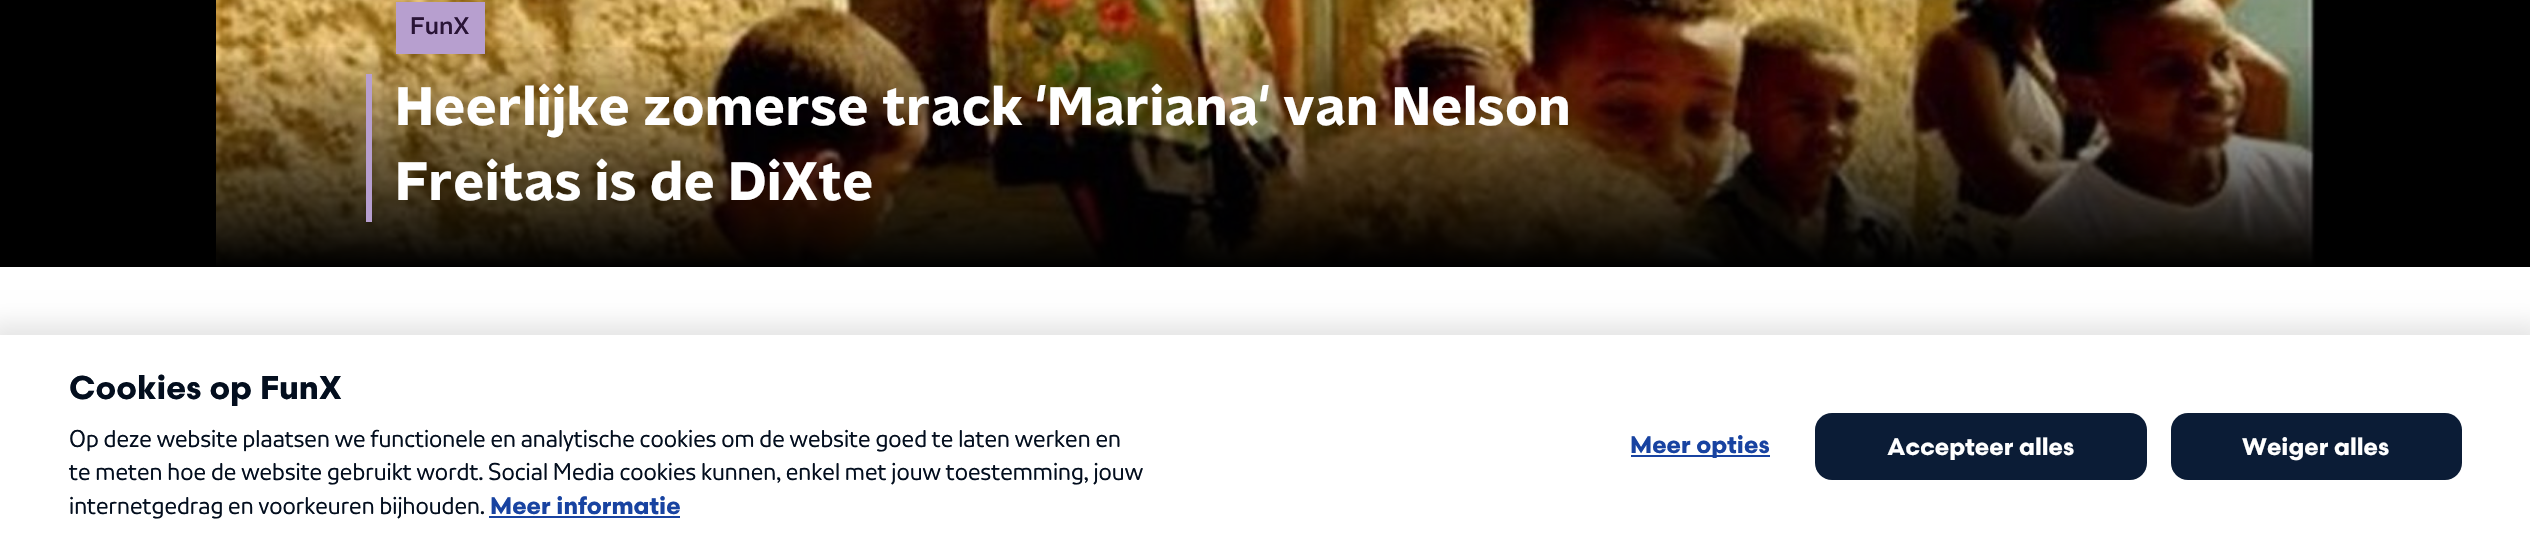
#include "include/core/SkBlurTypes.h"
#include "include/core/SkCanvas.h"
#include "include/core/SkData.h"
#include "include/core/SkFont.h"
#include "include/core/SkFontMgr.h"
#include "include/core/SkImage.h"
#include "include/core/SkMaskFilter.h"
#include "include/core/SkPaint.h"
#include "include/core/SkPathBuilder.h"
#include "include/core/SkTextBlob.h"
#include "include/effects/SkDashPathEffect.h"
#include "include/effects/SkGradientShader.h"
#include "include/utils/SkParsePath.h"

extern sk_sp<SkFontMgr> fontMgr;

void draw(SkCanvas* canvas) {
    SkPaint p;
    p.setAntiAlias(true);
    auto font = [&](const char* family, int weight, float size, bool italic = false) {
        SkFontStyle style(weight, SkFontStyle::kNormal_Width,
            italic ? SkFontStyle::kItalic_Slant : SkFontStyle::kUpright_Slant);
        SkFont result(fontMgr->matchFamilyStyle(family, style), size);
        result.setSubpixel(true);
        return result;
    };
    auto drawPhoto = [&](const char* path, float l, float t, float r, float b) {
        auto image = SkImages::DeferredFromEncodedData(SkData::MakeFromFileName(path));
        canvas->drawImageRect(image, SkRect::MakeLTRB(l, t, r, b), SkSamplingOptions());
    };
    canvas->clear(0xFF000000);
    drawPhoto("media/1.png", 216, 0, 2316, 266);
    {
        const SkColor colors[] = {0x00000000, 0xFF000000};
        const float stops[] = {0, 1};
        const SkPoint ends[] = {{1265, 42}, {1265, 267}};
        p.setShader(SkGradientShader::MakeLinear(ends, colors, stops, 2, SkTileMode::kClamp));
        p.setAlpha(255);
    }
    canvas->drawRect(SkRect::MakeLTRB(216, 47, 2316, 266), p);
    p.setShader(nullptr);
    p.setColor(0xFFB79FCF);
    canvas->drawRect(SkRect::MakeLTRB(396, 2, 485, 54), p);
    auto font1 = font("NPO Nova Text", 500, 24);
    p.setColor(0xFF291436);
    canvas->drawString("FunX", 410, 34, font1, p);
    p.setColor(0xFFB79FCF);
    canvas->drawRect(SkRect::MakeLTRB(366, 74, 372, 222), p);
    auto font2 = font("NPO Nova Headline", 700, 54);
    p.setColor(0xFFFFFFFF);
    canvas->drawString("Heerlijke zomerse track 'Mariana' van Nelson", 395, 125, font2, p);
    canvas->drawString("Freitas is de DiXte", 395, 200, font2, p);
    canvas->drawRect(SkRect::MakeLTRB(0, 267, 2530, 335), p);
    p.setColor(0x1A000000);
    p.setMaskFilter(SkMaskFilter::MakeBlur(kNormal_SkBlurStyle, 11));
    canvas->drawRect(SkRect::MakeLTRB(-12, 323, 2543, 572), p);
    p.setMaskFilter(nullptr);
    p.setColor(0xFFFFFFFF);
    canvas->drawRect(SkRect::MakeLTRB(0, 335, 2530, 559), p);
    auto font3 = font("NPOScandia", 700, 33);
    p.setColor(0xFF030E1E);
    canvas->drawString("Cookies op FunX", 69, 399, font3, p);
    auto font4 = font("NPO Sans", 400, 24);
    {
        const struct { const char* s; float x, y; } items[] = {
            {"Op deze website plaatsen we functionele en analytische cookies om de website goed te laten werken en", 69, 447},
            {"te meten hoe de website gebruikt wordt. Social Media cookies kunnen, enkel met jouw toestemming, jouw", 69, 480},
            {"internetgedrag en voorkeuren bijhouden.", 69, 514},
        };
        for (auto [s, x, y] : items) {
            canvas->drawString(s, x, y, font4, p);
        }
    }
    auto font5 = font("NPOScandia", 700, 24);
    p.setColor(0xFF1843A1);
    canvas->drawString("Meer informatie", 490, 514, font5, p);
    canvas->drawRect(SkRect::MakeLTRB(489, 516, 680, 518), p);
    canvas->drawRect(SkRect::MakeLTRB(1631, 455, 1770, 457), p);
    canvas->drawString("Meer opties", 1630, 453, font5, p);
    p.setColor(0xFF0B1C36);
    canvas->drawRoundRect(SkRect::MakeLTRB(1815, 413, 2147, 480), 17, 17, p);
    p.setColor(0xFFFFFFFF);
    canvas->drawString("Accepteer alles", 1887, 455, font5, p);
    p.setColor(0xFF0B1C36);
    canvas->drawRoundRect(SkRect::MakeLTRB(2171, 413, 2462, 480), 17, 17, p);
    p.setColor(0xFFFFFFFF);
    canvas->drawString("Weiger alles", 2242, 455, font5, p);
}
